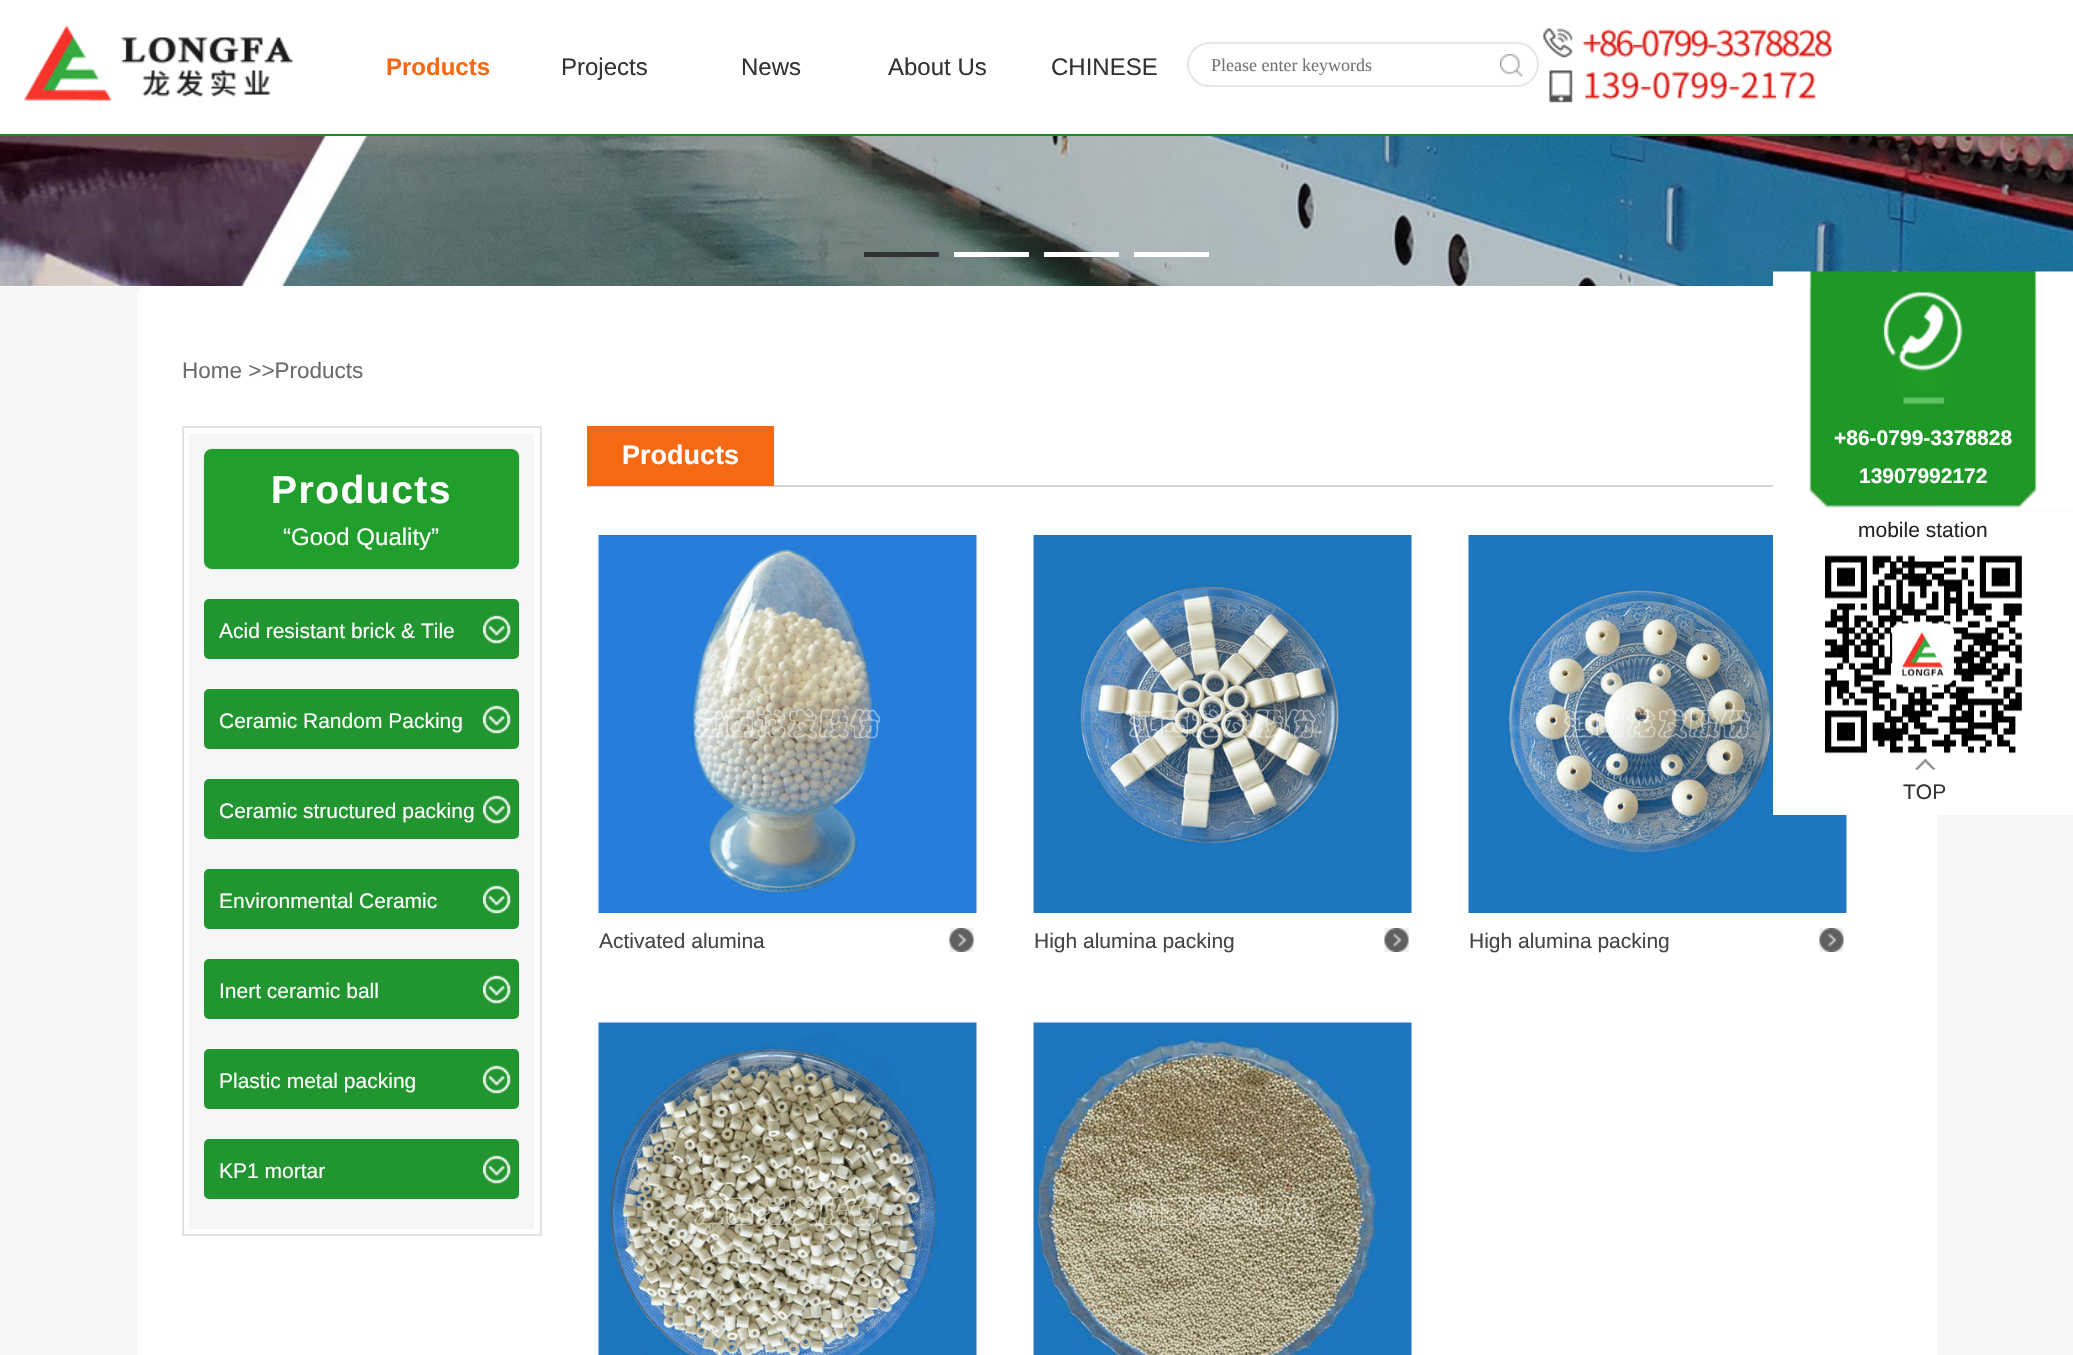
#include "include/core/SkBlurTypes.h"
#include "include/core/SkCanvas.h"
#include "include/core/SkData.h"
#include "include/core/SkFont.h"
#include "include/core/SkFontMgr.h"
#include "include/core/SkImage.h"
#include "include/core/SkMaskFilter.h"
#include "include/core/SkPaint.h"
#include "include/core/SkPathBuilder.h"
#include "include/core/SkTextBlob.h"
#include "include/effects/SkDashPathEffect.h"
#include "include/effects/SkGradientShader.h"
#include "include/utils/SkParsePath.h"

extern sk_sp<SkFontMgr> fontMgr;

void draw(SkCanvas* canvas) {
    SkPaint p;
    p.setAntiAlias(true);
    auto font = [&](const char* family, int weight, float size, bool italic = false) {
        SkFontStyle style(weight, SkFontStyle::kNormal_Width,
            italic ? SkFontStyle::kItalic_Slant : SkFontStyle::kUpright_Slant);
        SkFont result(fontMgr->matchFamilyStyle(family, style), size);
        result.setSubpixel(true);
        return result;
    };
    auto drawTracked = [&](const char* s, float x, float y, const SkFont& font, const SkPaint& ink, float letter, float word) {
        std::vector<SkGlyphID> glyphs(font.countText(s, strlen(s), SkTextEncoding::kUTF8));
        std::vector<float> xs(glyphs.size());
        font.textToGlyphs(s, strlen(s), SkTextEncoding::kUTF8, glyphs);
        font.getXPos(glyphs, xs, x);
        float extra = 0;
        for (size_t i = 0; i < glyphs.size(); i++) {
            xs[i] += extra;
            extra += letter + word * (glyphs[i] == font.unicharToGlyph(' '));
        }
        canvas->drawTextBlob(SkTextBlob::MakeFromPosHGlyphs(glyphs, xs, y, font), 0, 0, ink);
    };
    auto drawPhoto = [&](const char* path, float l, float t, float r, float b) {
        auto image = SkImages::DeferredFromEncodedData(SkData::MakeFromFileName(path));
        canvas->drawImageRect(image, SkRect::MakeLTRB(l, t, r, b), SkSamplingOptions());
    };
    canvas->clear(0xFFFFFFFF);
    drawPhoto("media/1.png", 24, 25, 293, 101);
    auto font1 = font("Liberation Sans", 700, 24);
    p.setColor(0xFFF66914);
    canvas->drawString("Products", 386, 75, font1, p);
    auto font2 = font("Liberation Sans", 400, 24);
    p.setColor(0xFF333333);
    {
        const struct { const char* s; float x, y; } items[] = {
            {"Projects", 561, 75},
            {"News", 741, 75},
            {"About Us", 888, 75},
            {"CHINESE", 1051, 75},
        };
        for (auto [s, x, y] : items) {
            canvas->drawString(s, x, y, font2, p);
        }
    }
    p.setStyle(SkPaint::kStroke_Style);
    p.setStrokeWidth(2);
    p.setColor(0xFFE7E7E7);
    canvas->drawRoundRect(SkRect::MakeLTRB(1188, 43, 1538, 86), 21.5f, 21.5f, p);
    auto font3 = font("Liberation Serif", 400, 18);
    p.setStyle(SkPaint::kFill_Style);
    p.setColor(0xFF757575);
    canvas->drawString("Please enter keywords", 1211, 71, font3, p);
    drawPhoto("media/2.png", 1500, 54, 1523, 77);
    drawPhoto("media/3.png", 1543, 28, 1832, 103);
    p.setColor(0xFF118F20);
    canvas->drawRect(SkRect::MakeLTRB(0, 134, 2073, 136), p);
    drawPhoto("media/4.png", 0, 136, 2073, 286);
    {
        const struct { float l, t, r, b; SkColor color; } items[] = {
            {864, 252, 939, 257, 0xFF333333},
            {954, 252, 1029, 257, 0xFFFFFFFF},
            {1044, 252, 1119, 257, 0xFFFFFFFF},
            {1134, 252, 1209, 257, 0xFFFFFFFF},
            {0, 287, 2073, 1355, 0xFFF6F6F6},
        };
        for (auto [l, t, r, b, color] : items) {
            p.setColor(color);
            canvas->drawRect(SkRect::MakeLTRB(l, t, r, b), p);
        }
    }
    p.setColor(0xFFFFFFFF);
    canvas->drawRoundRect(SkRect::MakeLTRB(137, 287, 1937, 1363), 8, 8, p);
    auto font4 = font("Liberation Sans", 400, 22.5f);
    p.setColor(0xFF6C6C6C);
    canvas->drawString("Home >>Products", 182, 378, font4, p);
    p.setStyle(SkPaint::kStroke_Style);
    p.setColor(0xFFE1E1E1);
    canvas->drawRect(SkRect::MakeLTRB(183, 427, 541, 1235), p);
    p.setStyle(SkPaint::kFill_Style);
    p.setColor(0xFFF6F6F6);
    canvas->drawRect(SkRect::MakeLTRB(189, 434, 534, 1229), p);
    p.setColor(0xFFCCCCCC);
    p.setMaskFilter(SkMaskFilter::MakeBlur(kNormal_SkBlurStyle, 1));
    canvas->drawRoundRect(SkRect::MakeLTRB(204, 449, 519, 569), 8, 8, p);
    p.setMaskFilter(nullptr);
    p.setColor(0xFF219F2D);
    canvas->drawRoundRect(SkRect::MakeLTRB(204, 449, 519, 569), 8, 8, p);
    auto font5 = font("Liberation Sans", 700, 39);
    p.setColor(0xFFFFFFFF);
    drawTracked("Products", 271, 503, font5, p, 1.5f, 0);
    canvas->drawString("“Good Quality”", 283, 545, font2, p);
    p.setColor(0xFF21952F);
    canvas->drawRoundRect(SkRect::MakeLTRB(204, 599, 519, 659), 5, 5, p);
    auto font6 = font("Liberation Sans", 400, 21);
    p.setColor(0xFFFFFFFF);
    canvas->drawString("Acid resistant brick & Tile", 219, 638, font6, p);
    drawPhoto("media/5.png", 483, 615, 511, 644);
    p.setColor(0xFF21952F);
    canvas->drawRoundRect(SkRect::MakeLTRB(204, 689, 519, 749), 5, 5, p);
    p.setColor(0xFFFFFFFF);
    canvas->drawString("Ceramic Random Packing", 219, 728, font6, p);
    drawPhoto("media/5.png", 483, 705, 511, 734);
    p.setColor(0xFF21952F);
    canvas->drawRoundRect(SkRect::MakeLTRB(204, 779, 519, 839), 5, 5, p);
    p.setColor(0xFFFFFFFF);
    canvas->drawString("Ceramic structured packing", 219, 818, font6, p);
    drawPhoto("media/5.png", 483, 795, 511, 824);
    p.setColor(0xFF21952F);
    canvas->drawRoundRect(SkRect::MakeLTRB(204, 869, 519, 929), 5, 5, p);
    p.setColor(0xFFFFFFFF);
    canvas->drawString("Environmental Ceramic", 219, 908, font6, p);
    drawPhoto("media/5.png", 483, 885, 511, 914);
    p.setColor(0xFF21952F);
    canvas->drawRoundRect(SkRect::MakeLTRB(204, 959, 519, 1019), 5, 5, p);
    p.setColor(0xFFFFFFFF);
    canvas->drawString("Inert ceramic ball", 219, 998, font6, p);
    drawPhoto("media/5.png", 483, 975, 511, 1004);
    p.setColor(0xFF21952F);
    canvas->drawRoundRect(SkRect::MakeLTRB(204, 1049, 519, 1109), 5, 5, p);
    p.setColor(0xFFFFFFFF);
    canvas->drawString("Plastic metal packing", 219, 1088, font6, p);
    drawPhoto("media/5.png", 483, 1065, 511, 1094);
    p.setColor(0xFF21952F);
    canvas->drawRoundRect(SkRect::MakeLTRB(204, 1139, 519, 1199), 5, 5, p);
    p.setColor(0xFFFFFFFF);
    canvas->drawString("KP1 mortar", 219, 1178, font6, p);
    drawPhoto("media/5.png", 483, 1155, 511, 1184);
    p.setColor(0xFFD5D5D5);
    canvas->drawRect(SkRect::MakeLTRB(587, 485, 1773, 487), p);
    p.setColor(0xFFF66914);
    canvas->drawRect(SkRect::MakeLTRB(587, 426, 774, 486), p);
    auto font7 = font("Liberation Sans", 700, 27);
    p.setColor(0xFFFFFFFF);
    canvas->drawString("Products", 622, 464, font7, p);
    drawPhoto("media/6.png", 598, 535, 977, 913);
    p.setColor(0xFF444444);
    canvas->drawString("Activated alumina", 599, 948, font6, p);
    drawPhoto("media/7.png", 949, 928, 974, 952);
    drawPhoto("media/8.png", 1033, 535, 1412, 913);
    canvas->drawString("High alumina packing", 1034, 948, font6, p);
    drawPhoto("media/9.png", 1384, 928, 1409, 952);
    drawPhoto("media/10.png", 1468, 535, 1847, 913);
    canvas->drawString("High alumina packing", 1469, 948, font6, p);
    drawPhoto("media/9.png", 1819, 928, 1844, 952);
    drawPhoto("media/11.png", 598, 1022, 977, 1355);
    drawPhoto("media/12.png", 1033, 1022, 1412, 1355);
    drawPhoto("media/13.png", 1773, 271, 2073, 512);
    auto font8 = font("Liberation Sans", 700, 21);
    p.setColor(0xFFFFFFFF);
    canvas->drawString("+86-0799-3378828", 1834, 445, font8, p);
    canvas->drawString("13907992172", 1859, 483, font8, p);
    canvas->drawRect(SkRect::MakeLTRB(1773, 512, 2073, 815), p);
    p.setColor(0xFF252525);
    canvas->drawString("mobile station", 1858, 537, font6, p);
    drawPhoto("media/14.png", 1825, 555, 2022, 754);
    drawPhoto("media/15.png", 1915, 759, 1936, 770);
    p.setColor(0xFF333333);
    canvas->drawString("TOP", 1903, 799, font6, p);
}
